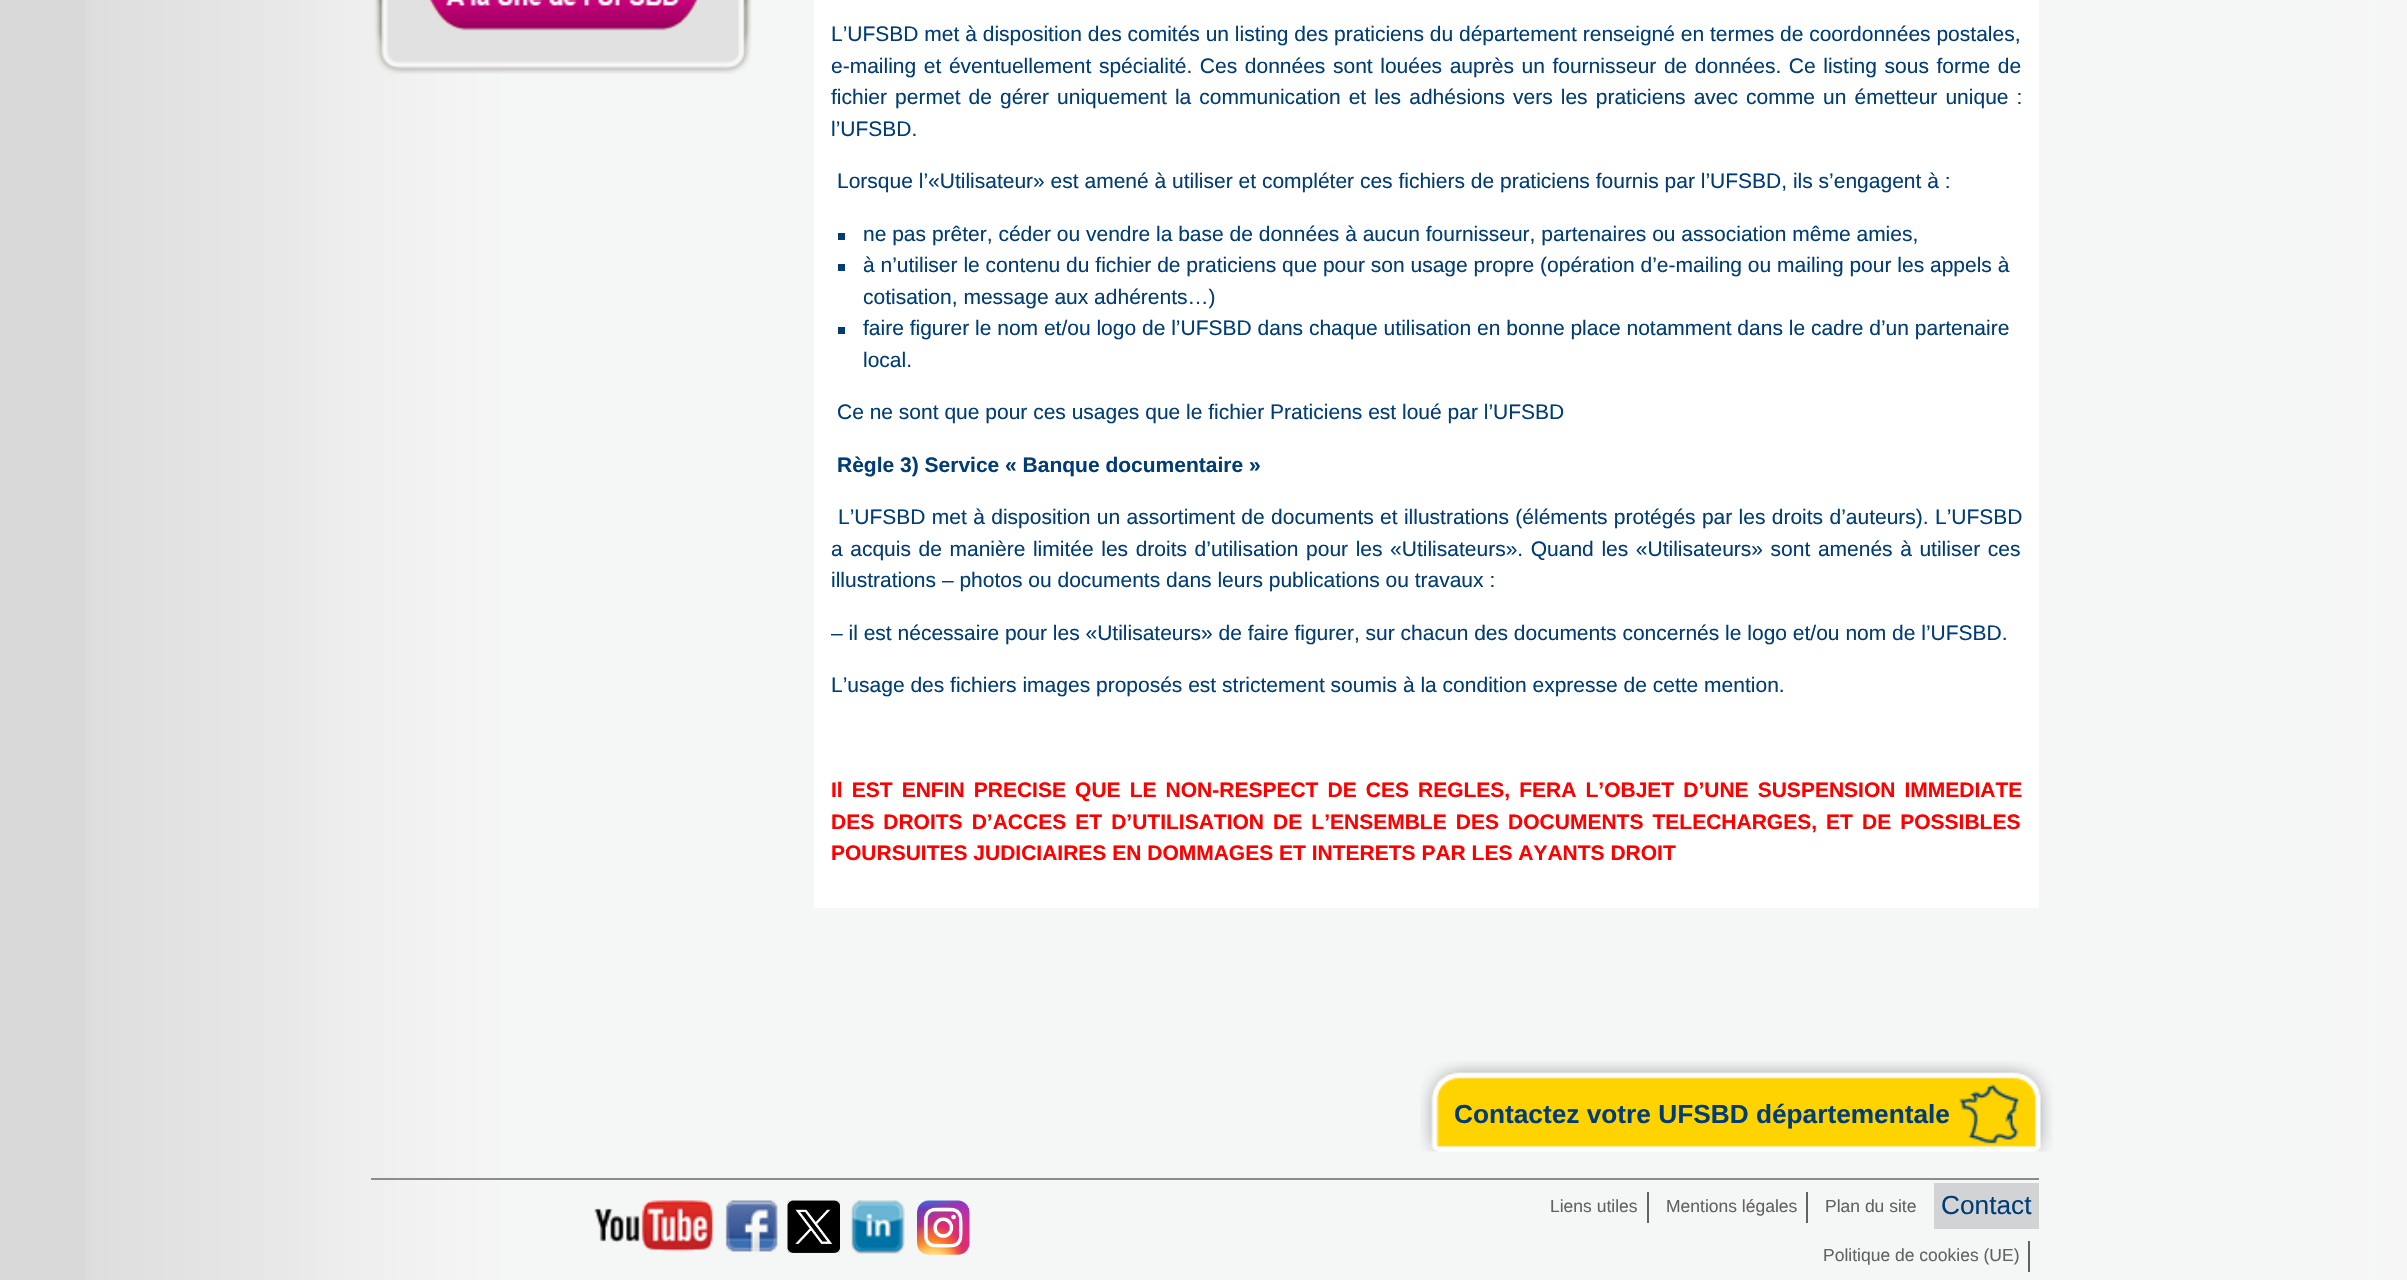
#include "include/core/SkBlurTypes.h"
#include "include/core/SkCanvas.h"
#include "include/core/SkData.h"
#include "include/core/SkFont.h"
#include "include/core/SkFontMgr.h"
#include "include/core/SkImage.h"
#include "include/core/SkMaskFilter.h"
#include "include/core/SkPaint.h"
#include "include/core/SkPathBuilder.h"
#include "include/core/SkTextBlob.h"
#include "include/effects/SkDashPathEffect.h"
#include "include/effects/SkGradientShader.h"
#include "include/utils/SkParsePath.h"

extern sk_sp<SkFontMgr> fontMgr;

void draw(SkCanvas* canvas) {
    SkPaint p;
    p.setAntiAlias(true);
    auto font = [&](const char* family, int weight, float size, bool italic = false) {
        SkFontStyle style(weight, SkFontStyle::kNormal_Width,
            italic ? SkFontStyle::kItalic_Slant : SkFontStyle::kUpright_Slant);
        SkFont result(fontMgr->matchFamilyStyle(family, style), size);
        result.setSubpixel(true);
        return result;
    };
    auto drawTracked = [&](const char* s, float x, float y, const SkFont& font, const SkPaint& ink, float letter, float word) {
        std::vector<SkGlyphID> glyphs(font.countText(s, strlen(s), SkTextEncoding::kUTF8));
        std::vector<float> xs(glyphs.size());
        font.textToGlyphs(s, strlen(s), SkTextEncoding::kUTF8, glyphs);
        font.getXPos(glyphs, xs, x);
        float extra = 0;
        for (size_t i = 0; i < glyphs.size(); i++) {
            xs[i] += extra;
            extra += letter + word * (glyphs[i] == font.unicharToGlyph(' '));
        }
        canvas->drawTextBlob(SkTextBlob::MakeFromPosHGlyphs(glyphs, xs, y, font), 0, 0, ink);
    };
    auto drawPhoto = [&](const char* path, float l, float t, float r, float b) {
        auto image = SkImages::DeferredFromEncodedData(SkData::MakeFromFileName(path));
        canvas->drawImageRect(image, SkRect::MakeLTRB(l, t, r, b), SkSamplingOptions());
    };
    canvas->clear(0xFFD9D9D9);
    drawPhoto("media/1.png", 85, 0, 2407, 1280);
    drawPhoto("media/2.png", 374, 0, 752, 74);
    p.setColor(0xFFFFFFFF);
    canvas->drawRect(SkRect::MakeLTRB(814, 0, 2039, 908), p);
    auto font1 = font("Liberation Sans", 400, 21);
    p.setColor(0xFF003C76);
    canvas->drawString("L’UFSBD met à disposition des comités un listing des praticiens du département renseigné en termes de coordonnées postales,", 831, 41, font1, p);
    drawTracked("e-mailing et éventuellement spécialité. Ces données sont louées auprès un fournisseur de données. Ce listing sous forme de", 831, 73, font1, p, 0, 1.75f);
    drawTracked("fichier permet de gérer uniquement la communication et les adhésions vers les praticiens avec comme un émetteur unique :", 831, 104, font1, p, 0, 2.25f);
    canvas->drawString("l’UFSBD.", 831, 136, font1, p);
    canvas->drawString("Lorsque l’«Utilisateur» est amené à utiliser et compléter ces fichiers de praticiens fournis par l’UFSBD, ils s’engagent à :", 837, 188, font1, p);
    canvas->drawRect(SkRect::MakeLTRB(838, 233, 845, 240), p);
    canvas->drawString("ne pas prêter, céder ou vendre la base de données à aucun fournisseur, partenaires ou association même amies,", 863, 241, font1, p);
    canvas->drawRect(SkRect::MakeLTRB(838, 264, 845, 271), p);
    canvas->drawString("à n’utiliser le contenu du fichier de praticiens que pour son usage propre (opération d’e-mailing ou mailing pour les appels à", 863, 272, font1, p);
    canvas->drawString("cotisation, message aux adhérents…)", 863, 304, font1, p);
    canvas->drawRect(SkRect::MakeLTRB(838, 327, 845, 334), p);
    {
        const struct { const char* s; float x, y; } items[] = {
            {"faire figurer le nom et/ou logo de l’UFSBD dans chaque utilisation en bonne place notamment dans le cadre d’un partenaire", 863, 335},
            {"local.", 863, 367},
            {"Ce ne sont que pour ces usages que le fichier Praticiens est loué par l’UFSBD", 837, 419},
        };
        for (auto [s, x, y] : items) {
            canvas->drawString(s, x, y, font1, p);
        }
    }
    auto font2 = font("Liberation Sans", 700, 21);
    canvas->drawString("Règle 3) Service « Banque documentaire »", 837, 472, font2, p);
    drawTracked("L’UFSBD met à disposition un assortiment de documents et illustrations (éléments protégés par les droits d’auteurs). L’UFSBD", 838, 524, font1, p, 0, 0.5f);
    drawTracked("a acquis de manière limitée les droits d’utilisation pour les «Utilisateurs». Quand les «Utilisateurs» sont amenés à utiliser ces", 831, 556, font1, p, 0, 1.75f);
    {
        const struct { const char* s; float x, y; } items[] = {
            {"illustrations – photos ou documents dans leurs publications ou travaux :", 831, 587},
            {"– il est nécessaire pour les «Utilisateurs» de faire figurer, sur chacun des documents concernés le logo et/ou nom de l’UFSBD.", 831, 640},
            {"L’usage des fichiers images proposés est strictement soumis à la condition expresse de cette mention.", 831, 692},
        };
        for (auto [s, x, y] : items) {
            canvas->drawString(s, x, y, font1, p);
        }
    }
    p.setColor(0xFFFF0000);
    drawTracked("Il EST ENFIN PRECISE QUE LE NON-RESPECT DE CES REGLES, FERA L’OBJET D’UNE SUSPENSION IMMEDIATE", 831, 797, font2, p, 0, 3.25f);
    drawTracked("DES DROITS D’ACCES ET D’UTILISATION DE L’ENSEMBLE DES DOCUMENTS TELECHARGES, ET DE POSSIBLES", 831, 829, font2, p, 0, 3.25f);
    canvas->drawString("POURSUITES JUDICIAIRES EN DOMMAGES ET INTERETS PAR LES AYANTS DROIT", 831, 860, font2, p);
    drawPhoto("media/3.png", 1420, 1061, 2053, 1152);
    auto font3 = font("Liberation Sans", 700, 26.25f);
    p.setColor(0xFF003C76);
    canvas->drawString("Contactez votre UFSBD départementale", 1454, 1123, font3, p);
    p.setColor(0xFF8C8C8C);
    canvas->drawRect(SkRect::MakeLTRB(371, 1178, 2039, 1180), p);
    drawPhoto("media/4.png", 594, 1200, 713, 1252);
    drawPhoto("media/5.png", 725, 1200, 778, 1252);
    drawPhoto("media/6.png", 787, 1200, 840, 1253);
    drawPhoto("media/7.png", 850, 1200, 905, 1254);
    drawPhoto("media/8.png", 917, 1200, 970, 1255);
    p.setColor(0xFF636263);
    canvas->drawRect(SkRect::MakeLTRB(1647, 1192, 1649, 1223), p);
    auto font4 = font("Liberation Sans", 400, 17.5f);
    canvas->drawString("Liens utiles", 1550, 1212, font4, p);
    canvas->drawRect(SkRect::MakeLTRB(1806, 1192, 1808, 1223), p);
    canvas->drawString("Mentions légales", 1666, 1212, font4, p);
    canvas->drawString("Plan du site", 1825, 1212, font4, p);
    p.setColor(0xFFD2D3D5);
    canvas->drawRect(SkRect::MakeLTRB(1934, 1183, 2039, 1229), p);
    auto font5 = font("Liberation Sans", 400, 26.25f);
    p.setColor(0xFF003C76);
    canvas->drawString("Contact", 1941, 1214, font5, p);
    p.setColor(0xFF636263);
    canvas->drawRect(SkRect::MakeLTRB(2028, 1241, 2030, 1272), p);
    canvas->drawString("Politique de cookies (UE)", 1823, 1261, font4, p);
}
